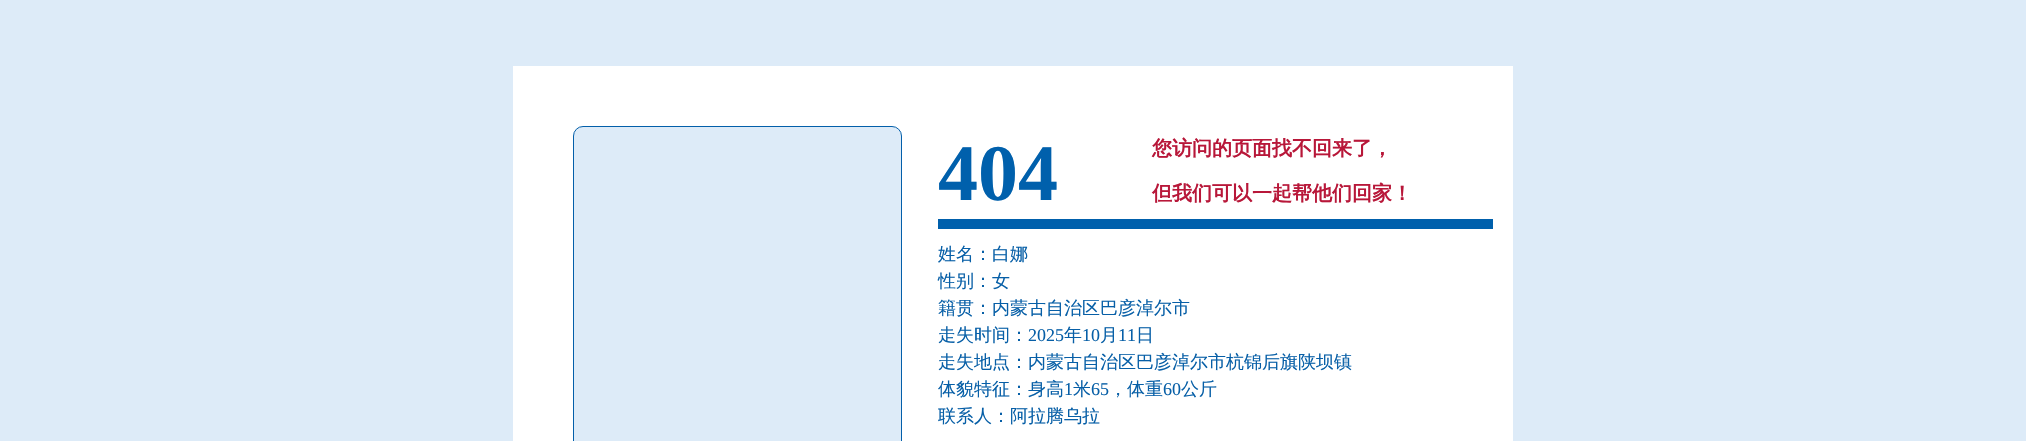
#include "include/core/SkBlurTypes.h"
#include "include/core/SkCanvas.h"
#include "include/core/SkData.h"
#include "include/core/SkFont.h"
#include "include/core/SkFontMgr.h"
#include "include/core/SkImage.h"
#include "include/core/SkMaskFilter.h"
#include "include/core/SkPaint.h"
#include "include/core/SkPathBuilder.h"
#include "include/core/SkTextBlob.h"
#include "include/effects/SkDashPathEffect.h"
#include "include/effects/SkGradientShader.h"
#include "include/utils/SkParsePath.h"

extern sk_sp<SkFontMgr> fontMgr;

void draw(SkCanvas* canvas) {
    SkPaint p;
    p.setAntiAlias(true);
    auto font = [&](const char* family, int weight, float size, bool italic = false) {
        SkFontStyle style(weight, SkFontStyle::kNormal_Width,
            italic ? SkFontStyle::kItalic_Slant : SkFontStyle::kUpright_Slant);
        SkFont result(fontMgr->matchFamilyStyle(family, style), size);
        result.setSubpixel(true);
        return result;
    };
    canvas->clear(0xFFDDEBF8);
    p.setColor(0xFFFFFFFF);
    canvas->drawRect(SkRect::MakeLTRB(513, 66, 1513, 441), p);
    p.setColor(0xFFDDEBF8);
    canvas->drawRoundRect(SkRect::MakeLTRB(573.5f, 126.5f, 901.5f, 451.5f), 9.5f, 9.5f, p);
    p.setStyle(SkPaint::kStroke_Style);
    p.setStrokeWidth(1);
    p.setColor(0xFF035FAA);
    canvas->drawRoundRect(SkRect::MakeLTRB(573.5f, 126.5f, 901.5f, 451.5f), 9.5f, 9.5f, p);
    auto font1 = font("Liberation Serif", 700, 80);
    p.setStyle(SkPaint::kFill_Style);
    p.setColor(0xFF0060AC);
    canvas->drawString("404", 938, 200, font1, p);
    auto font2 = font("WenQuanYi Zen Hei", 700, 20);
    p.setColor(0xFFB81739);
    canvas->drawString("您访问的页面找不回来了，", 1152, 155, font2, p);
    canvas->drawString("但我们可以一起帮他们回家！", 1152, 200, font2, p);
    p.setColor(0xFF0060AC);
    canvas->drawRect(SkRect::MakeLTRB(938, 219, 1493, 229), p);
    auto font3 = font("WenQuanYi Zen Hei", 500, 18);
    p.setColor(0xFF075FA7);
    {
        const struct { const char* s; float x, y; } items[] = {
            {"姓名：白娜", 938, 260},
            {"性别：女", 938, 287},
            {"籍贯：内蒙古自治区巴彦淖尔市", 938, 314},
            {"走失时间：", 938, 341},
        };
        for (auto [s, x, y] : items) {
            canvas->drawString(s, x, y, font3, p);
        }
    }
    auto font4 = font("Liberation Serif", 400, 18);
    canvas->drawString("2025", 1028, 341, font4, p);
    canvas->drawString("年", 1064, 341, font3, p);
    canvas->drawString("10", 1082, 341, font4, p);
    canvas->drawString("月", 1100, 341, font3, p);
    canvas->drawString("11", 1118, 341, font4, p);
    {
        const struct { const char* s; float x, y; } items[] = {
            {"日", 1136, 341},
            {"走失地点：内蒙古自治区巴彦淖尔市杭锦后旗陕坝镇", 938, 368},
            {"体貌特征：身高", 938, 395},
        };
        for (auto [s, x, y] : items) {
            canvas->drawString(s, x, y, font3, p);
        }
    }
    canvas->drawString("1", 1064, 395, font4, p);
    canvas->drawString("米", 1073, 395, font3, p);
    canvas->drawString("65", 1091, 395, font4, p);
    canvas->drawString("，体重", 1109, 395, font3, p);
    canvas->drawString("60", 1163, 395, font4, p);
    canvas->drawString("公斤", 1181, 395, font3, p);
    canvas->drawString("联系人：阿拉腾乌拉", 938, 422, font3, p);
}
